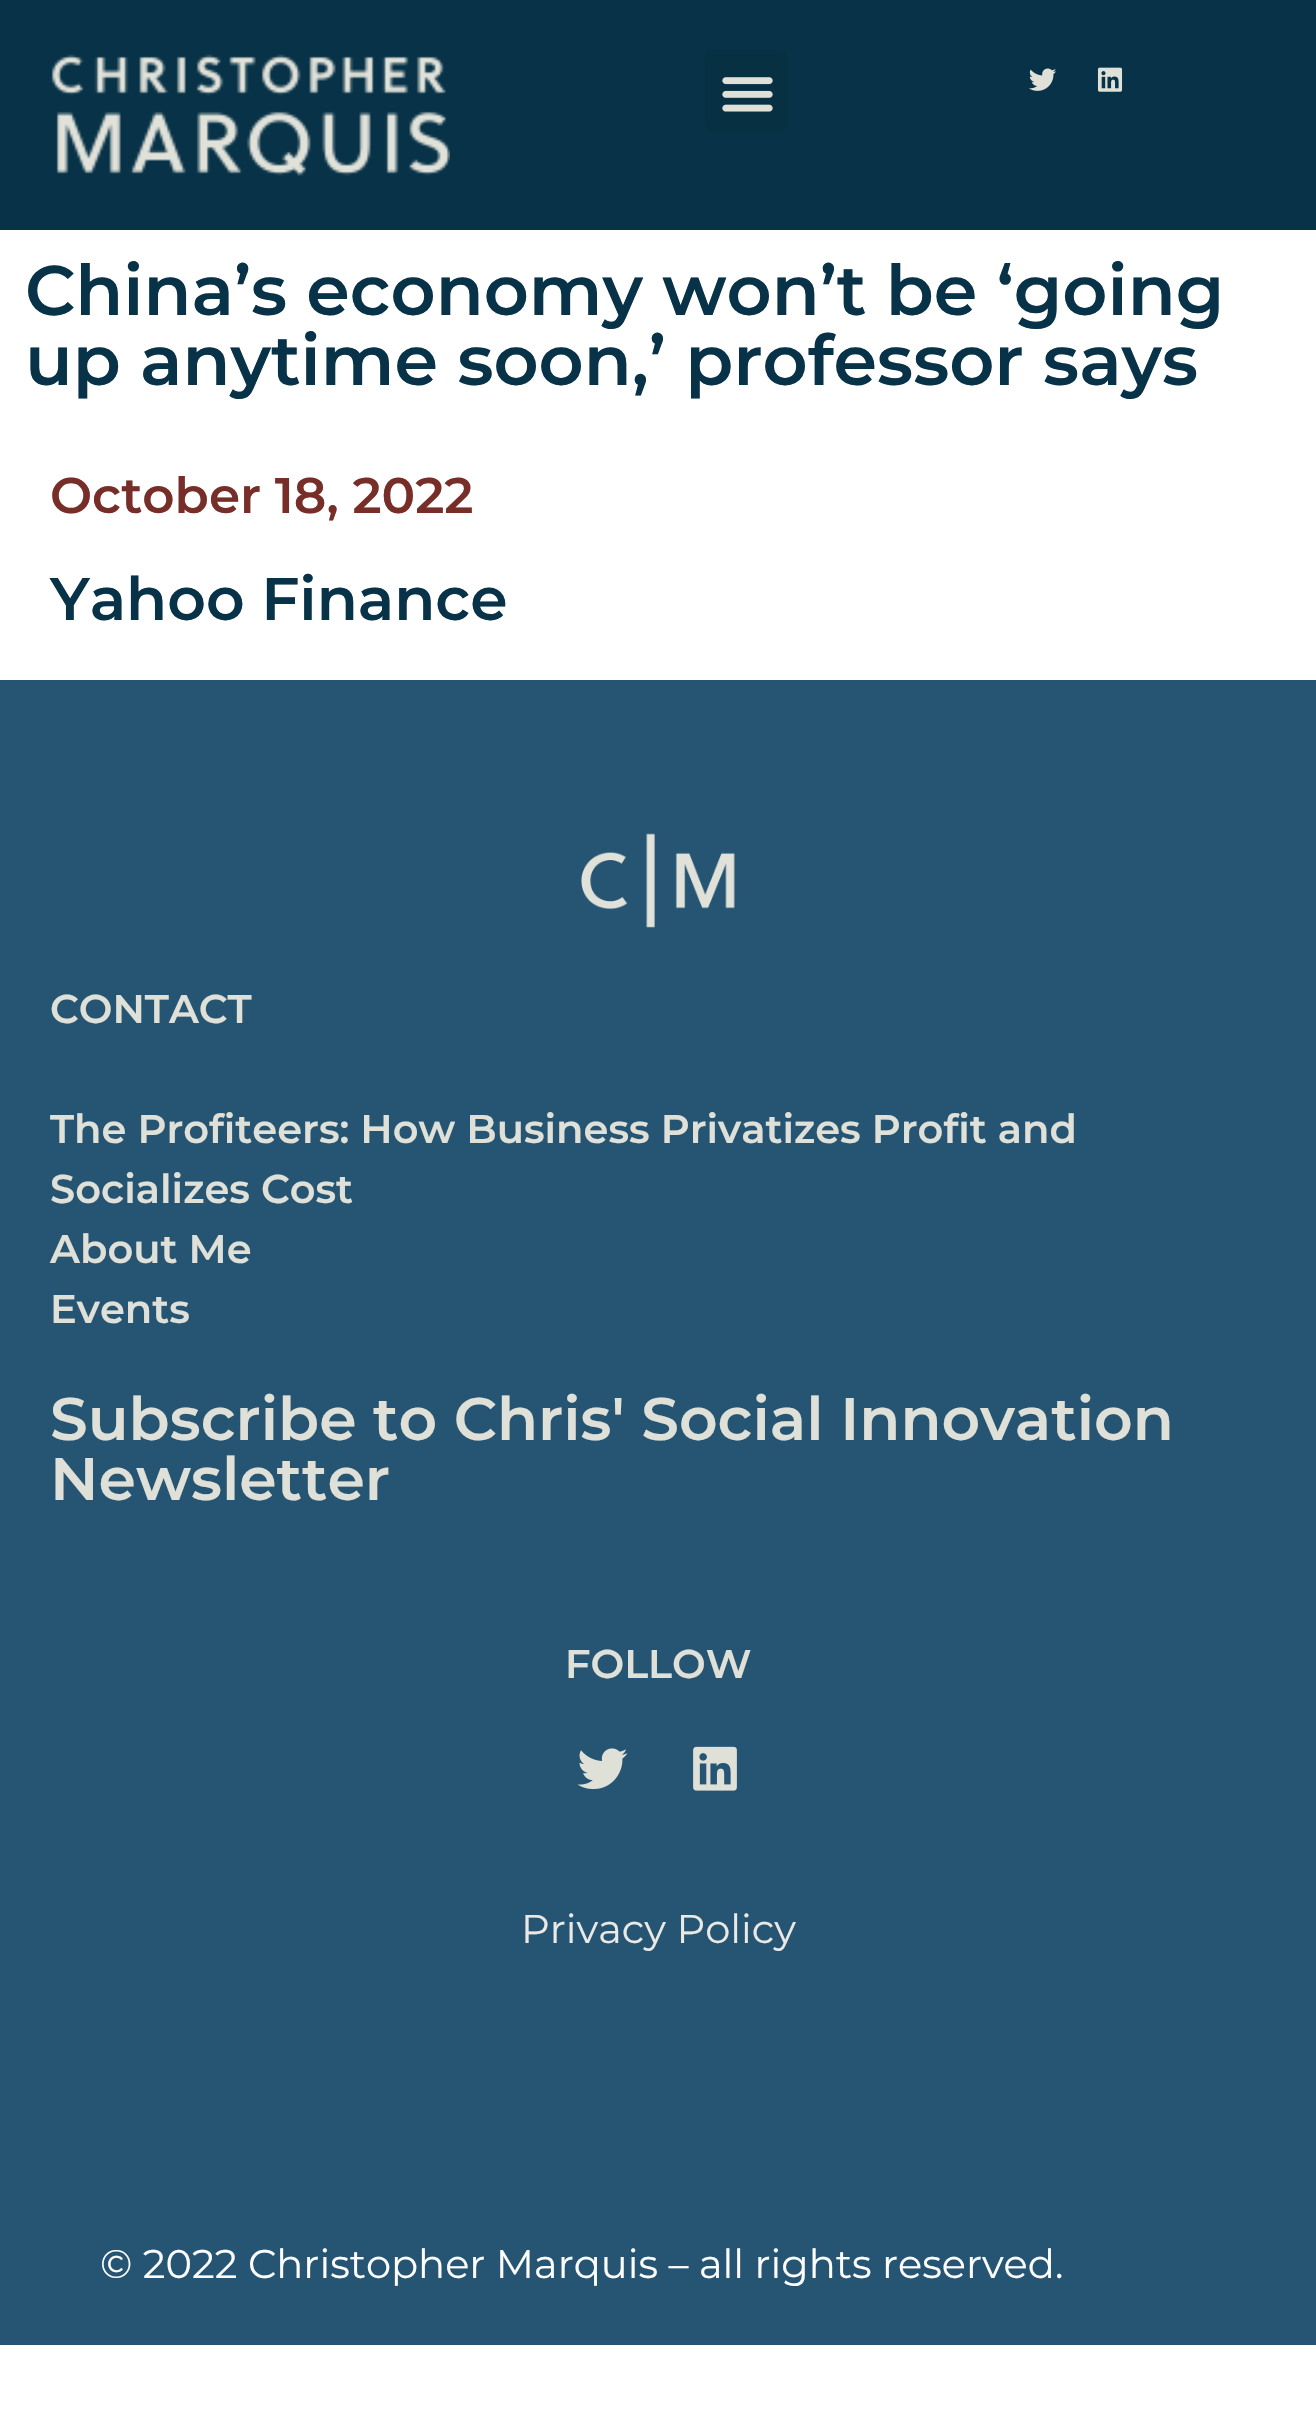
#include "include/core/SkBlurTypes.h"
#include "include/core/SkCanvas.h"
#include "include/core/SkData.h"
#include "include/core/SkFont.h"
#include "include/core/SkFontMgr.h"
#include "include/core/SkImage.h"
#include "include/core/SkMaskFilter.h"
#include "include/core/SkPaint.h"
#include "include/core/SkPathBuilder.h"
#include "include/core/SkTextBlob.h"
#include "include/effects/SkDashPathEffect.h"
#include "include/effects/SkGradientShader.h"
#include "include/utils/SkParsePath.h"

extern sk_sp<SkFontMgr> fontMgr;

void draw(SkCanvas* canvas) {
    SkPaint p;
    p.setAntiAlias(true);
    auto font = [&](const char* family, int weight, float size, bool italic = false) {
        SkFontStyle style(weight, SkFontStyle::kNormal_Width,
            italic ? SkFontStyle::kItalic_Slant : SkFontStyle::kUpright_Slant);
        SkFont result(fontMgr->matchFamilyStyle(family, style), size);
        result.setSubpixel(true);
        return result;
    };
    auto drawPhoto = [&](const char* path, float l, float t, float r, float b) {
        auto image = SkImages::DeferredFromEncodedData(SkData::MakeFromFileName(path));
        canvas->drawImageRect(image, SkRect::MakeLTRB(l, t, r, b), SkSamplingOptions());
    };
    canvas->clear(0xFFFFFFFF);
    p.setColor(0xFF073247);
    canvas->drawRect(SkRect::MakeLTRB(0, 0, 1316, 230), p);
    drawPhoto("media/1.png", 51, 54, 450, 176);
    p.setColor(0xFF073043);
    canvas->drawRoundRect(SkRect::MakeLTRB(705, 50, 788, 133), 8, 8, p);
    drawPhoto("media/2.png", 722, 77, 773, 112);
    drawPhoto("media/3.png", 1029, 68, 1057, 91);
    drawPhoto("media/4.png", 1097, 67, 1123, 92);
    auto font1 = font("Montserrat", 600, 70);
    p.setColor(0xFF073247);
    canvas->drawString("China’s economy won’t be ‘going", 25, 315, font1, p);
    canvas->drawString("up anytime soon,’ professor says", 25, 385, font1, p);
    auto font2 = font("Montserrat", 600, 50);
    p.setColor(0xFF782E28);
    canvas->drawString("October 18, 2022", 50, 513, font2, p);
    auto font3 = font("Montserrat", 600, 60);
    p.setColor(0xFF073247);
    canvas->drawString("Yahoo Finance", 50, 620, font3, p);
    p.setColor(0xFF265573);
    canvas->drawRect(SkRect::MakeLTRB(0, 680, 1316, 2345), p);
    drawPhoto("media/5.png", 581, 833, 735, 928);
    auto font4 = font("Montserrat", 600, 40);
    p.setColor(0xFFDFE0D8);
    {
        const struct { const char* s; float x, y; } items[] = {
            {"CONTACT", 50, 1023},
            {"The Profiteers: How Business Privatizes Profit and", 50, 1143},
            {"Socializes Cost", 50, 1203},
            {"About Me", 50, 1263},
            {"Events", 50, 1323},
        };
        for (auto [s, x, y] : items) {
            canvas->drawString(s, x, y, font4, p);
        }
    }
    canvas->drawString("Subscribe to Chris' Social Innovation", 50, 1440, font3, p);
    canvas->drawString("Newsletter", 50, 1500, font3, p);
    canvas->drawString("FOLLOW", 565, 1678, font4, p);
    drawPhoto("media/6.png", 577, 1748, 628, 1790);
    drawPhoto("media/7.png", 693, 1746, 737, 1791);
    auto font5 = font("Montserrat", 400, 40);
    p.setColor(0xFFEAE9E5);
    canvas->drawString("Privacy Policy", 521, 1943, font5, p);
    p.setColor(0xFFFFFFFF);
    canvas->drawString("© 2022 Christopher Marquis – all rights reserved.", 100, 2278, font5, p);
}
